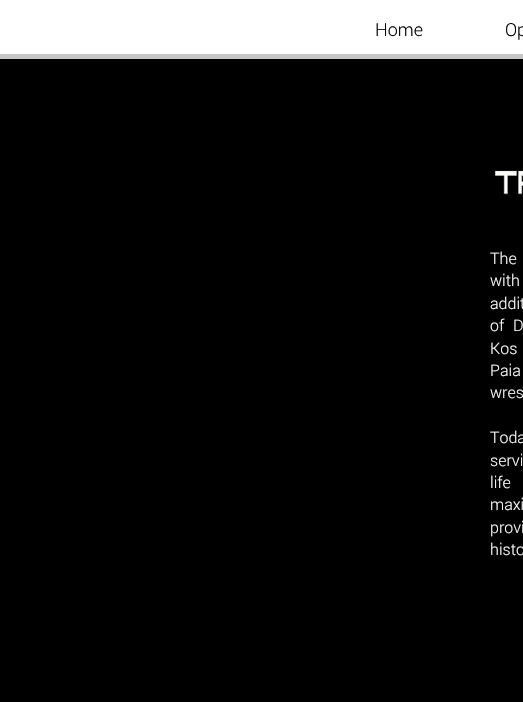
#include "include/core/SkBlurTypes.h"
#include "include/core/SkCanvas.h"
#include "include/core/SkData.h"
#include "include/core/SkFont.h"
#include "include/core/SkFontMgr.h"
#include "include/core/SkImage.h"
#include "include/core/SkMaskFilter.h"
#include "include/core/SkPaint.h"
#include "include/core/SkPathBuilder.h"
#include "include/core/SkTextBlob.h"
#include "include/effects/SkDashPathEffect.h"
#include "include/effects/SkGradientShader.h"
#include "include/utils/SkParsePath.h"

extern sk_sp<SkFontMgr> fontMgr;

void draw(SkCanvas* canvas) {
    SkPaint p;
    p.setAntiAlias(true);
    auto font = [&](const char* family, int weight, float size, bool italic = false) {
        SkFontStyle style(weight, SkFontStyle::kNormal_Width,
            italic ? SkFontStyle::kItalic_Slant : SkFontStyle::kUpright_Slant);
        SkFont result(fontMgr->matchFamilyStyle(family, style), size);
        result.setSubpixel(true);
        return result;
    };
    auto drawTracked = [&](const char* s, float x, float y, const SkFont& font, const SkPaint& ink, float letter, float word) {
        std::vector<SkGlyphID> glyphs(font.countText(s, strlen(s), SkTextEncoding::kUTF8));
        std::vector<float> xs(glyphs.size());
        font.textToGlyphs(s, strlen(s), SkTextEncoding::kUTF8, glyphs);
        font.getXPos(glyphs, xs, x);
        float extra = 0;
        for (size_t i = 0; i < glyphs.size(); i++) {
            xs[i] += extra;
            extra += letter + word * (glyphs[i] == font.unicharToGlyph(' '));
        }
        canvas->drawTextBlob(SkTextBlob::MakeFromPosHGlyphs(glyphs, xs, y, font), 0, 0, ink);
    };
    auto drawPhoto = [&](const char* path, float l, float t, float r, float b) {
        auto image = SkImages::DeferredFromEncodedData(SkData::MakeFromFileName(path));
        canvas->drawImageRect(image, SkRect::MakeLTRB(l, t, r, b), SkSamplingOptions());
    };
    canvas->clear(0xFFFFFFFF);
    auto font1 = font("Roboto", 300, 18);
    p.setColor(0xFF000000);
    canvas->drawString("Home", 375, 36, font1, p);
    canvas->drawString("Op", 505, 36, font1, p);
    p.setColor(0xFFC7C7C7);
    canvas->drawRect(SkRect::MakeLTRB(0, 54, 523, 59), p);
    p.setColor(0xFF000000);
    canvas->drawRect(SkRect::MakeLTRB(0, 59, 523, 702), p);
    drawPhoto("media/1.png", 495, 170, 523, 195);
    auto font2 = font("Roboto", 300, 16);
    p.setColor(0xFFFFFFFF);
    drawTracked("The", 490, 264, font2, p, 0, 3);
    drawTracked("with", 490, 286, font2, p, 0, 4);
    drawTracked("addit", 490, 309, font2, p, 0, 1);
    drawTracked("of D", 490, 331, font2, p, 0, 5);
    drawTracked("Kos", 490, 354, font2, p, 0, 2);
    drawTracked("Paia", 490, 376, font2, p, 0, 2);
    canvas->drawString("wres", 490, 398, font2, p);
    drawTracked("Toda", 490, 443, font2, p, 0, 2);
    drawTracked("servi", 490, 466, font2, p, 0, 2);
    drawTracked("life", 490, 488, font2, p, 0, 6);
    drawTracked("maxi", 490, 510, font2, p, 0, 7);
    drawTracked("provi", 490, 533, font2, p, 0, 5);
    canvas->drawString("histo", 490, 555, font2, p);
}
